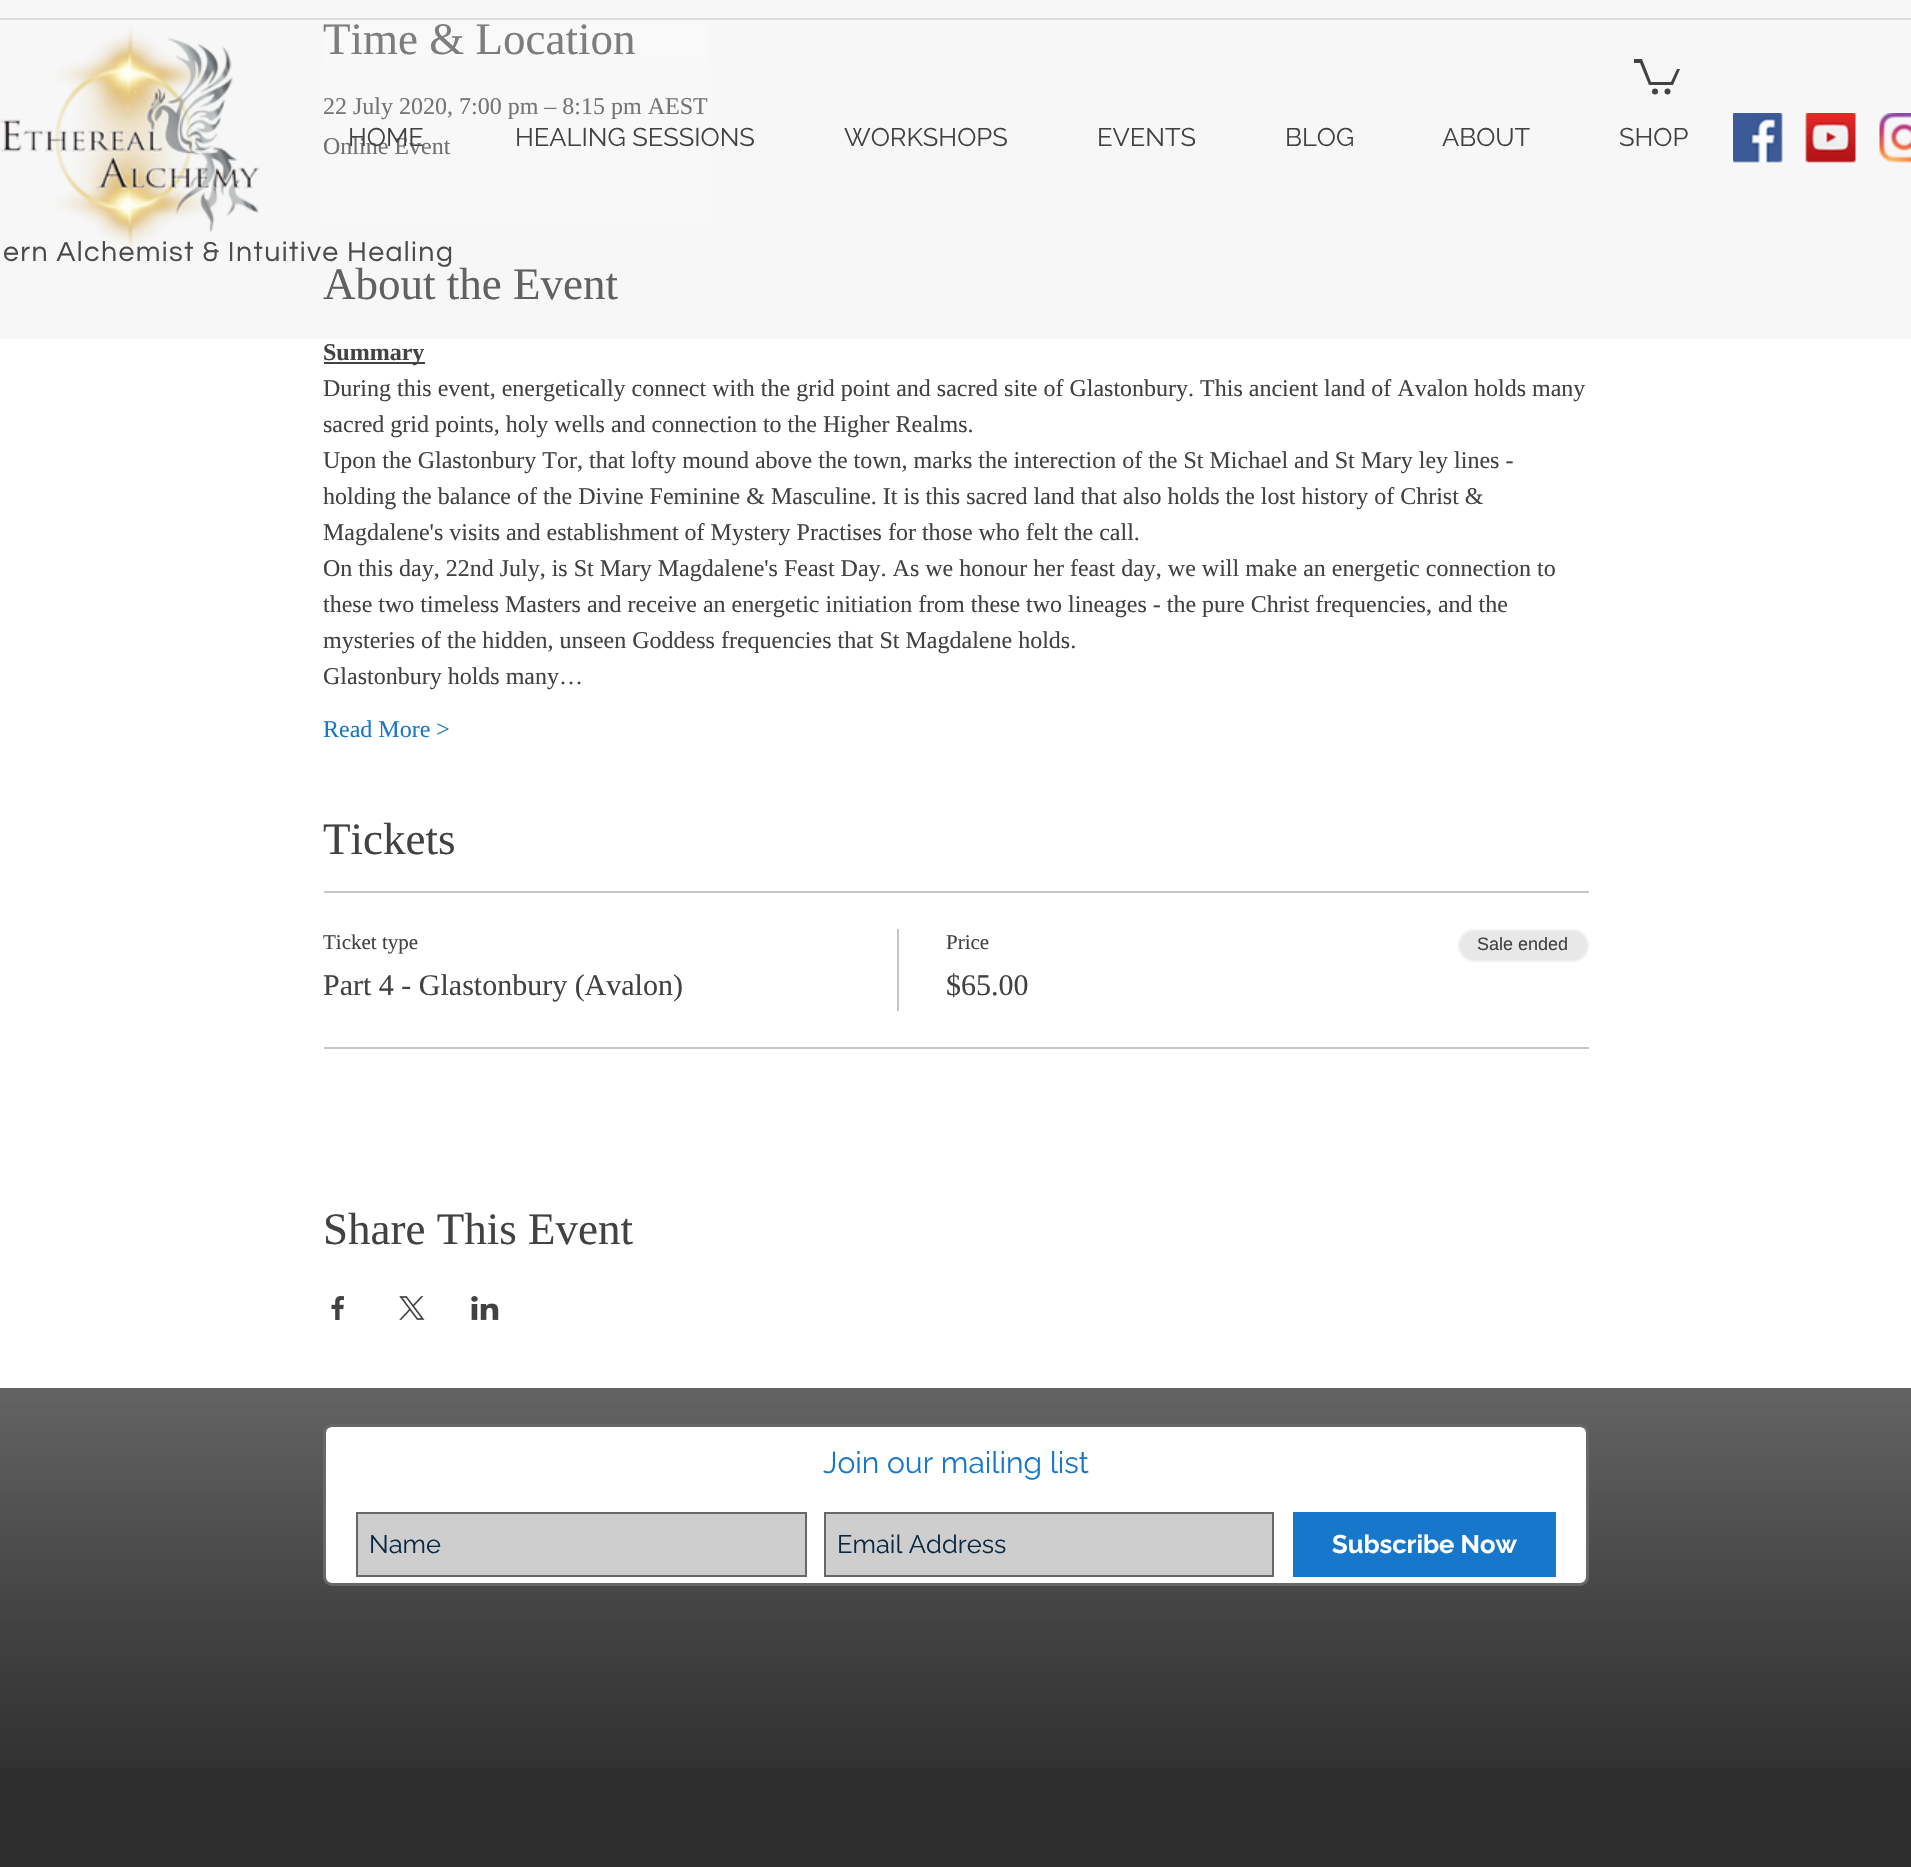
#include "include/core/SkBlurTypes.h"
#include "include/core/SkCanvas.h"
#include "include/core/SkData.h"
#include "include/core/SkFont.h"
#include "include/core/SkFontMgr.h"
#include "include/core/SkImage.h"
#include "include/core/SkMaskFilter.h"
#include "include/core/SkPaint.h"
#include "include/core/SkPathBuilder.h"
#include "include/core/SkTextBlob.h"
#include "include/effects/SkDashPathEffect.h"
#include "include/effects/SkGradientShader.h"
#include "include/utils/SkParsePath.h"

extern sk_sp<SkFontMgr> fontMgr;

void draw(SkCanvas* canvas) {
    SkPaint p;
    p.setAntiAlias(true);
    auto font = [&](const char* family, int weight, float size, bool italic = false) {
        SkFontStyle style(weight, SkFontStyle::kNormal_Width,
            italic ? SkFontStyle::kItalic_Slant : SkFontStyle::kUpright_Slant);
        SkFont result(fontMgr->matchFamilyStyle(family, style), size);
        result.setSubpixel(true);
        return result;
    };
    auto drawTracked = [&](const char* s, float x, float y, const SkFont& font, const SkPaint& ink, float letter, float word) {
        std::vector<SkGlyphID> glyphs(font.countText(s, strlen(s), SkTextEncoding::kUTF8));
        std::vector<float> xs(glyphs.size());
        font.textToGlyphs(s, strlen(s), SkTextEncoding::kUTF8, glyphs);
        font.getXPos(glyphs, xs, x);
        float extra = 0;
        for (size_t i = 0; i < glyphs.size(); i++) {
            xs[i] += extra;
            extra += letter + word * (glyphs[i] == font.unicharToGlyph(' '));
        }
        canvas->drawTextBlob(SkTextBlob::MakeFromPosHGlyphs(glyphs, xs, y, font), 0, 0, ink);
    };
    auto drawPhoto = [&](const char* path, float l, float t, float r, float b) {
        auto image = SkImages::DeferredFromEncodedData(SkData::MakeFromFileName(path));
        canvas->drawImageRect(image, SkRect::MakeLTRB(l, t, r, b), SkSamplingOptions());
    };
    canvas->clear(0xFFFFFFFF);
    p.setColor(0xFFF7F7F7);
    canvas->drawRect(SkRect::MakeLTRB(0, 0, 1911, 339), p);
    auto font1 = font("Liberation Serif", 400, 45);
    p.setColor(0xFF565656);
    canvas->drawString("Time & Location", 323, 54, font1, p);
    auto font2 = font("Liberation Serif", 400, 24);
    canvas->drawString("22 July 2020, 7:00 pm – 8:15 pm AEST", 323, 114, font2, p);
    canvas->drawString("Online Event", 323, 154, font2, p);
    canvas->drawString("About the Event", 323, 299, font1, p);
    p.setColor(0xFF424242);
    canvas->drawRect(SkRect::MakeLTRB(324, 362, 425, 364), p);
    auto font3 = font("Liberation Serif", 700, 24);
    canvas->drawString("Summary", 323, 360, font3, p);
    {
        const struct { const char* s; float x, y; } items[] = {
            {"During this event, energetically connect with the grid point and sacred site of Glastonbury. This ancient land of Avalon holds many", 323, 396},
            {"sacred grid points, holy wells and connection to the Higher Realms.", 323, 432},
            {"Upon the Glastonbury Tor, that lofty mound above the town, marks the interection of the St Michael and St Mary ley lines -", 323, 468},
            {"holding the balance of the Divine Feminine & Masculine. It is this sacred land that also holds the lost history of Christ &", 323, 504},
            {"Magdalene's visits and establishment of Mystery Practises for those who felt the call.", 323, 540},
            {"On this day, 22nd July, is St Mary Magdalene's Feast Day. As we honour her feast day, we will make an energetic connection to", 323, 576},
            {"these two timeless Masters and receive an energetic initiation from these two lineages - the pure Christ frequencies, and the", 323, 612},
            {"mysteries of the hidden, unseen Goddess frequencies that St Magdalene holds.", 323, 648},
            {"Glastonbury holds many…", 323, 684},
        };
        for (auto [s, x, y] : items) {
            canvas->drawString(s, x, y, font2, p);
        }
    }
    p.setColor(0xFF1777CB);
    canvas->drawString("Read More >", 323, 737, font2, p);
    p.setColor(0xFF424242);
    canvas->drawString("Tickets", 323, 854, font1, p);
    p.setColor(0xFFC6C6C6);
    canvas->drawRect(SkRect::MakeLTRB(324, 891, 1589, 893), p);
    canvas->drawRect(SkRect::MakeLTRB(324, 1047, 1589, 1049), p);
    auto font4 = font("Liberation Serif", 400, 21);
    p.setColor(0xFF424242);
    canvas->drawString("Ticket type", 323, 949, font4, p);
    auto font5 = font("Liberation Serif", 400, 30);
    canvas->drawString("Part 4 - Glastonbury (Avalon)", 323, 995, font5, p);
    p.setColor(0xFFC6C6C6);
    canvas->drawRect(SkRect::MakeLTRB(897, 929, 899, 1011), p);
    p.setColor(0xFF424242);
    canvas->drawString("Price", 946, 949, font4, p);
    canvas->drawString("$65.00", 946, 995, font5, p);
    p.setColor(0xFFE8E8E8);
    canvas->drawRoundRect(SkRect::MakeLTRB(1458, 929, 1589, 962), 16.5f, 16.5f, p);
    p.setStyle(SkPaint::kStroke_Style);
    p.setStrokeWidth(2);
    p.setColor(0x66FFFFFF);
    canvas->drawRoundRect(SkRect::MakeLTRB(1459, 930, 1588, 961), 15.5f, 15.5f, p);
    auto font6 = font("Liberation Sans", 400, 18);
    p.setStyle(SkPaint::kFill_Style);
    p.setColor(0xFF424242);
    canvas->drawString("Sale ended", 1477, 950, font6, p);
    canvas->drawString("Share This Event", 323, 1244, font1, p);
    drawPhoto("media/1.png", 331, 1296, 344, 1320);
    drawPhoto("media/2.png", 399, 1296, 425, 1320);
    drawPhoto("media/3.png", 471, 1296, 499, 1320);
    drawPhoto("media/4.png", 324, 24, 708, 300);
    p.setColor(0xFFDCDCDC);
    canvas->drawRect(SkRect::MakeLTRB(0, 18, 1911, 20), p);
    auto font7 = font("Questrial", 400, 28.5f);
    p.setColor(0xFF4B4B4B);
    drawTracked("ern Alchemist & Intuitive Healing", 3, 261, font7, p, 1.4f, 0);
    drawPhoto("media/5.png", 0, 25, 260, 253);
    p.setColor(0xFF424242);
    canvas->drawPath(SkPathBuilder().moveTo(1680, 69).lineTo(1673, 85).lineTo(1649, 85).lineTo(1640, 63).lineTo(1634, 63).lineTo(1634, 59).lineTo(1642, 59).lineTo(1651, 82).lineTo(1671, 82).lineTo(1677, 69).detach(), p);
    canvas->drawCircle(1667.5f, 91.5f, 3, p);
    canvas->drawCircle(1655, 91.5f, 3, p);
    auto font8 = font("Raleway", 400, 25.5f);
    {
        const struct { const char* s; float x, y; } items[] = {
            {"HOME", 348, 146},
            {"HEALING SESSIONS", 515, 146},
            {"WORKSHOPS", 844, 146},
            {"EVENTS", 1097, 146},
            {"BLOG", 1285, 146},
            {"ABOUT", 1442, 146},
            {"SHOP", 1619, 146},
        };
        for (auto [s, x, y] : items) {
            canvas->drawString(s, x, y, font8, p);
        }
    }
    drawPhoto("media/6.png", 1733, 113, 1783, 163);
    drawPhoto("media/7.png", 1805, 113, 1856, 163);
    drawPhoto("media/8.png", 1879, 113, 1911, 163);
    p.setColor(0xFF2E2D2D);
    canvas->drawRect(SkRect::MakeLTRB(0, 1388, 1911, 1867), p);
    drawPhoto("media/9.png", 0, 1388, 1911, 1768);
    p.setColor(0xFFFFFFFF);
    canvas->drawRoundRect(SkRect::MakeLTRB(324.5f, 1425.5f, 1587.5f, 1584.5f), 7.5f, 7.5f, p);
    p.setStyle(SkPaint::kStroke_Style);
    p.setStrokeWidth(3);
    p.setColor(0xFF686868);
    canvas->drawRoundRect(SkRect::MakeLTRB(324.5f, 1425.5f, 1587.5f, 1584.5f), 7.5f, 7.5f, p);
    auto font9 = font("Raleway", 400, 30);
    p.setStyle(SkPaint::kFill_Style);
    p.setColor(0xFF1777CB);
    canvas->drawString("Join our mailing list", 823, 1473, font9, p);
    p.setColor(0xFFCECECE);
    canvas->drawRect(SkRect::MakeLTRB(357, 1513, 806, 1576), p);
    p.setStyle(SkPaint::kStroke_Style);
    p.setStrokeWidth(2);
    p.setColor(0xFF686868);
    canvas->drawRect(SkRect::MakeLTRB(357, 1513, 806, 1576), p);
    p.setStyle(SkPaint::kFill_Style);
    p.setColor(0xFF082844);
    canvas->drawString("Name", 369, 1553, font8, p);
    p.setColor(0xFFCECECE);
    canvas->drawRect(SkRect::MakeLTRB(825, 1513, 1273, 1576), p);
    p.setStyle(SkPaint::kStroke_Style);
    p.setColor(0xFF686868);
    canvas->drawRect(SkRect::MakeLTRB(825, 1513, 1273, 1576), p);
    p.setStyle(SkPaint::kFill_Style);
    p.setColor(0xFF082844);
    canvas->drawString("Email Address", 837, 1553, font8, p);
    p.setColor(0xFF1777CB);
    canvas->drawRect(SkRect::MakeLTRB(1293, 1512, 1556, 1577), p);
    auto font10 = font("Raleway", 700, 25.5f);
    p.setColor(0xFFFFFFFF);
    canvas->drawString("Subscribe Now", 1332, 1553, font10, p);
}
